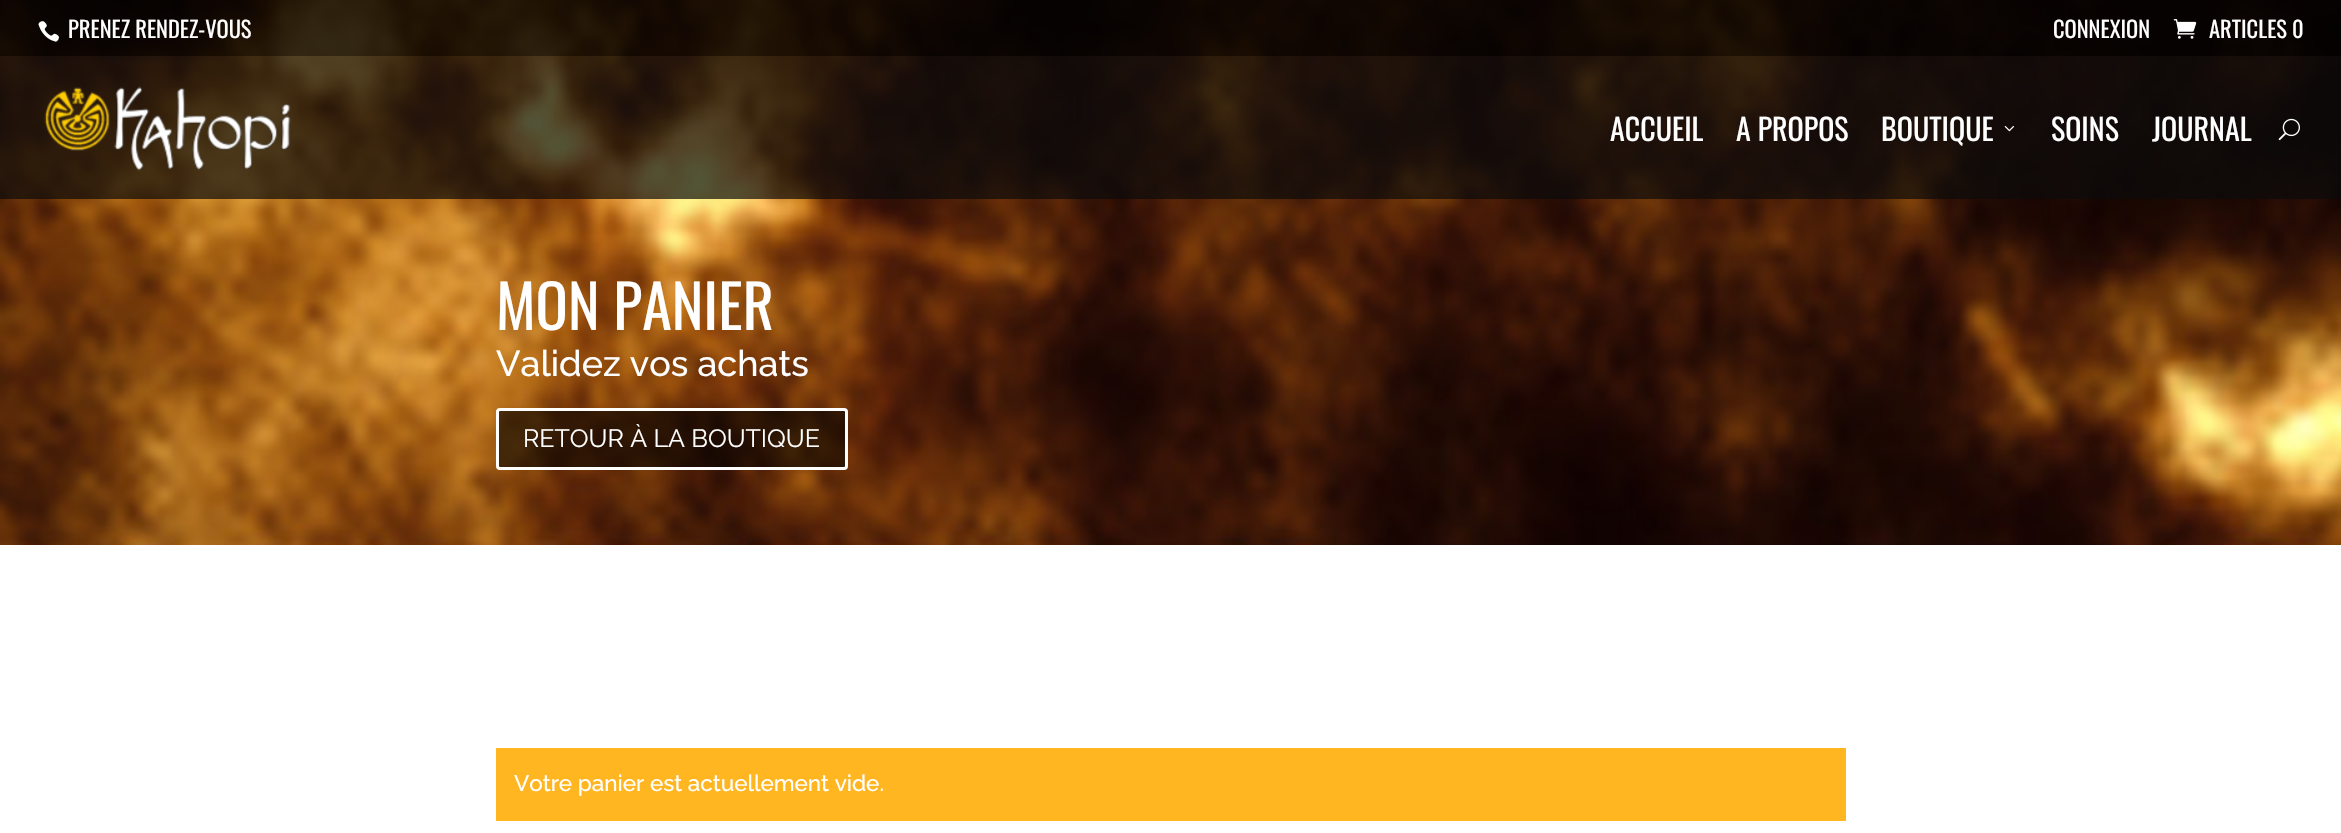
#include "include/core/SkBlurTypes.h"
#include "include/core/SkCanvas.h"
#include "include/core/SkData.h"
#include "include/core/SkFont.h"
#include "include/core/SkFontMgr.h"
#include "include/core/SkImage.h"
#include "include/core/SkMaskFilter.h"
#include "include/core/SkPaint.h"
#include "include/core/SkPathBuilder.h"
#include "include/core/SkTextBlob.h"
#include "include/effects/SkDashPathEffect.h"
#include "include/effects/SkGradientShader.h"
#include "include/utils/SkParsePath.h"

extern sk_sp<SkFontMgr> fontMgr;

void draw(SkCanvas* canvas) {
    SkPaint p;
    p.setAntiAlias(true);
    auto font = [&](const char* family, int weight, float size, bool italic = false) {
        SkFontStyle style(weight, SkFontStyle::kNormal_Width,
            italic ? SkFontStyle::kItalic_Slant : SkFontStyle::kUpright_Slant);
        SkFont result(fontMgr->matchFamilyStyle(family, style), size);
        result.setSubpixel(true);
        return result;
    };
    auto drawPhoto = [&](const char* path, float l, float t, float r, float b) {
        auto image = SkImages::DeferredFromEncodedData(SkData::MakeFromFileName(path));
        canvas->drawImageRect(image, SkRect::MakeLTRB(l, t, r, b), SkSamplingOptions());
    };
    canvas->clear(0xFFFFFFFF);
    drawPhoto("media/6.png", 0, 0, 2341, 545);
    p.setColor(0xCC000000);
    canvas->drawRect(SkRect::MakeLTRB(0, 0, 2341, 56), p);
    drawPhoto("media/1.png", 38, 21, 59, 42);
    auto font1 = font("Oswald", 400, 22.5f);
    p.setColor(0xFFFFFFFF);
    canvas->drawString("PRENEZ RENDEZ-VOUS", 68, 38, font1, p);
    canvas->drawString("CONNEXION", 2053, 38, font1, p);
    drawPhoto("media/2.png", 2173, 19, 2197, 39);
    canvas->drawString("ARTICLES 0", 2209, 38, font1, p);
    p.setColor(0xB30A0A0A);
    canvas->drawRect(SkRect::MakeLTRB(0, 56, 2341, 199), p);
    drawPhoto("media/3.png", 44, 86, 291, 171);
    auto font2 = font("Oswald", 400, 30);
    p.setColor(0xFFFFFFFF);
    {
        const struct { const char* s; float x, y; } items[] = {
            {"ACCUEIL", 1610, 141},
            {"A PROPOS", 1736, 141},
            {"BOUTIQUE", 1881, 141},
        };
        for (auto [s, x, y] : items) {
            canvas->drawString(s, x, y, font2, p);
        }
    }
    drawPhoto("media/4.png", 2004, 126, 2014, 132);
    canvas->drawString("SOINS", 2051, 141, font2, p);
    canvas->drawString("JOURNAL", 2152, 141, font2, p);
    drawPhoto("media/5.png", 2278, 118, 2300, 141);
    auto font3 = font("Oswald", 400, 60);
    canvas->drawString("MON PANIER", 496, 330, font3, p);
    auto font4 = font("Raleway", 500, 36);
    canvas->drawString("Validez vos achats", 496, 376, font4, p);
    p.setColor(0x99000000);
    canvas->drawRoundRect(SkRect::MakeLTRB(497.5f, 409.5f, 846.5f, 468.5f), 2.5f, 2.5f, p);
    p.setStyle(SkPaint::kStroke_Style);
    p.setStrokeWidth(3);
    p.setColor(0xFFFFFFFF);
    canvas->drawRoundRect(SkRect::MakeLTRB(497.5f, 409.5f, 846.5f, 468.5f), 2.5f, 2.5f, p);
    auto font5 = font("Raleway", 400, 25);
    p.setStyle(SkPaint::kFill_Style);
    canvas->drawString("RETOUR À LA BOUTIQUE", 523, 447, font5, p);
    p.setColor(0xFFFFB621);
    canvas->drawRect(SkRect::MakeLTRB(496, 748, 1846, 821), p);
    auto font6 = font("Raleway", 500, 22.5f);
    p.setColor(0xFFFFFFFF);
    canvas->drawString("Votre panier est actuellement vide.", 514, 791, font6, p);
}
